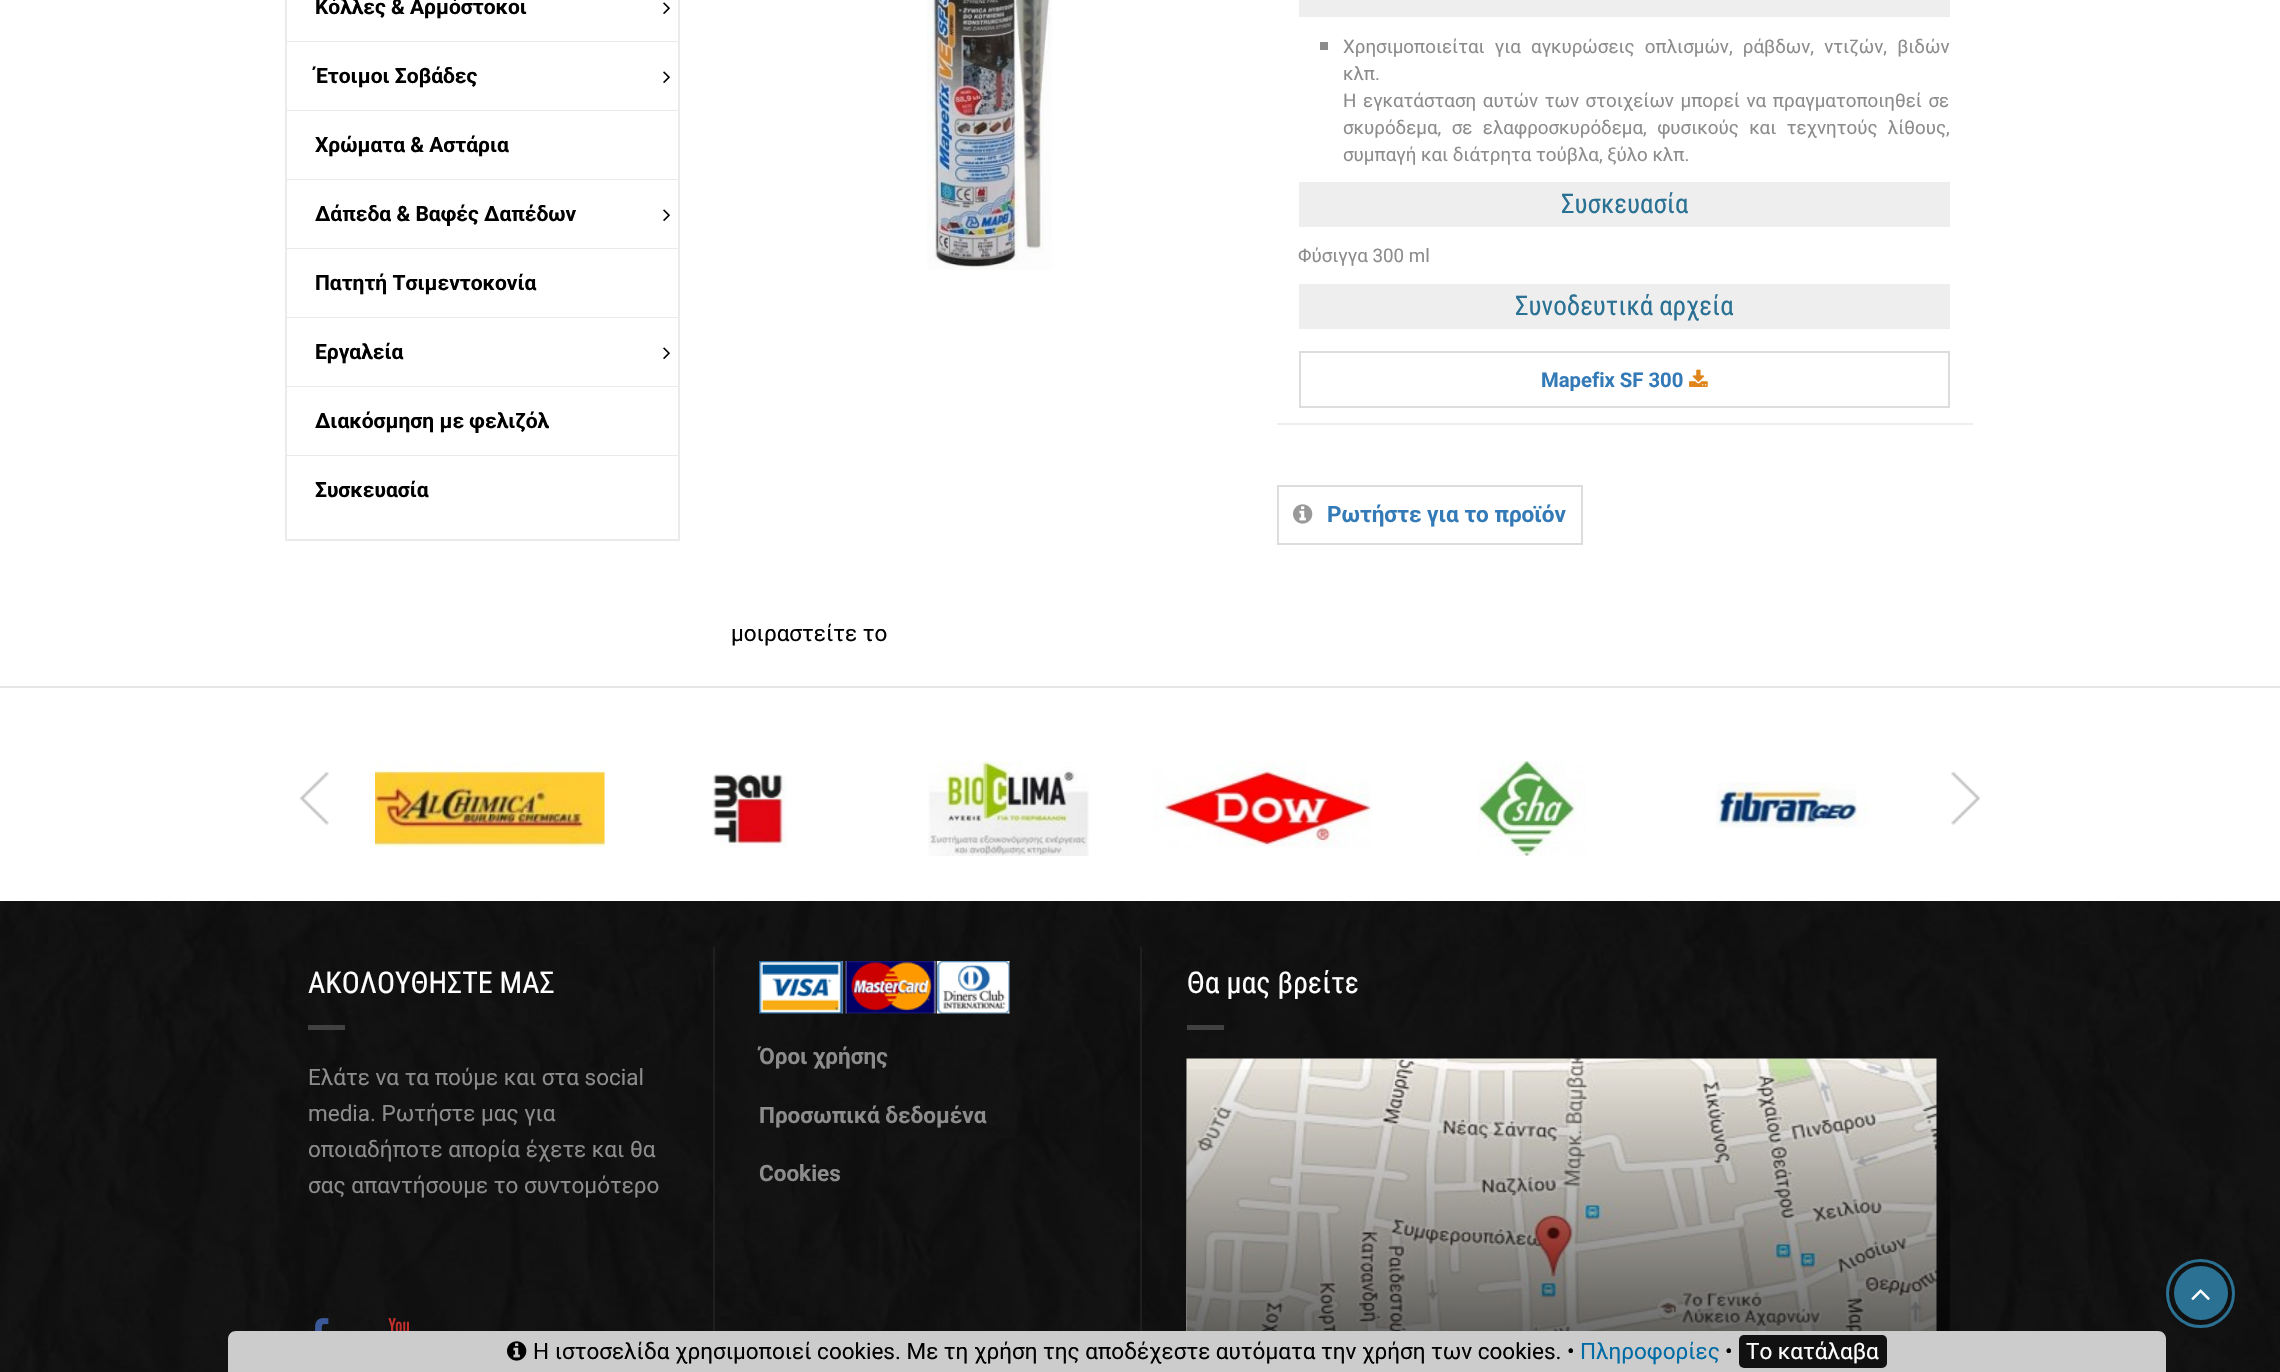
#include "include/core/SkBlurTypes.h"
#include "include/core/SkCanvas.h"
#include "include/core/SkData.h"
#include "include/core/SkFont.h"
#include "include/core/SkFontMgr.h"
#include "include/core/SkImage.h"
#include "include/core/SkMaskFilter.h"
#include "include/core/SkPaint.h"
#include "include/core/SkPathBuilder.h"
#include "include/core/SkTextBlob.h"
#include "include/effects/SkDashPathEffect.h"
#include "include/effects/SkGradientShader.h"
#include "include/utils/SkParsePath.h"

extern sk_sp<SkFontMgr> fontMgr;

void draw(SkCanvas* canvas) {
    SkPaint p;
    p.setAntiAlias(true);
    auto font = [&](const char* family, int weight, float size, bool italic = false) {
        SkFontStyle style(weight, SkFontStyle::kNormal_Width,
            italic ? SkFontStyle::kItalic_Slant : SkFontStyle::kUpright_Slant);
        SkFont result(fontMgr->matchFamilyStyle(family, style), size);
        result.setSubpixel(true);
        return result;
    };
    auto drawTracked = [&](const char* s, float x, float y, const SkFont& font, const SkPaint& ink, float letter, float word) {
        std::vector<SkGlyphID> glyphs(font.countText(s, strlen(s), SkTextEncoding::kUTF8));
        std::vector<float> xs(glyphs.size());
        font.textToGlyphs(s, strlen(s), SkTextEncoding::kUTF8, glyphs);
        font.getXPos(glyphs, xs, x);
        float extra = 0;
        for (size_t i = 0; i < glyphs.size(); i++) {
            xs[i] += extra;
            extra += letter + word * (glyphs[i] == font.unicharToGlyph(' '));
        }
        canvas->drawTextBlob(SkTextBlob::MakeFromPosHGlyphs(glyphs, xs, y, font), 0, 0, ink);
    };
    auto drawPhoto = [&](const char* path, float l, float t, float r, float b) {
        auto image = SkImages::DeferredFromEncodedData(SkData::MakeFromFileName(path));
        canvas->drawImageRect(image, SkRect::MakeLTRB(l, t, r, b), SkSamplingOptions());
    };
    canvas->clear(0xFFFFFFFF);
    {
        const struct { float l, t, r, b; SkColor color; } items[] = {
            {678, 0, 680, 540, 0xFFEBEBEB},
            {285, 539, 680, 541, 0xFFEBEBEB},
            {285, 0, 287, 540, 0xFFEBEBEB},
            {287, 41, 678, 42, 0xFFEBEBEB},
        };
        for (auto [l, t, r, b, color] : items) {
            p.setColor(color);
            canvas->drawRect(SkRect::MakeLTRB(l, t, r, b), p);
        }
    }
    auto font1 = font("Roboto", 700, 21);
    p.setColor(0xFF000000);
    canvas->drawString("Κόλλες & Αρμόστοκοι", 315, 14, font1, p);
    drawPhoto("media/1.png", 663, 2, 670, 14);
    p.setColor(0xFFEBEBEB);
    canvas->drawRect(SkRect::MakeLTRB(287, 110, 678, 111), p);
    p.setColor(0xFF000000);
    canvas->drawString("Έτοιμοι Σοβάδες", 315, 83, font1, p);
    drawPhoto("media/1.png", 663, 71, 670, 83);
    p.setColor(0xFFEBEBEB);
    canvas->drawRect(SkRect::MakeLTRB(287, 179, 678, 180), p);
    p.setColor(0xFF000000);
    canvas->drawString("Χρώματα & Αστάρια", 315, 152, font1, p);
    p.setColor(0xFFEBEBEB);
    canvas->drawRect(SkRect::MakeLTRB(287, 248, 678, 249), p);
    p.setColor(0xFF000000);
    canvas->drawString("Δάπεδα & Βαφές Δαπέδων", 315, 221, font1, p);
    drawPhoto("media/1.png", 663, 209, 670, 221);
    p.setColor(0xFFEBEBEB);
    canvas->drawRect(SkRect::MakeLTRB(287, 317, 678, 318), p);
    p.setColor(0xFF000000);
    canvas->drawString("Πατητή Τσιμεντοκονία", 315, 290, font1, p);
    p.setColor(0xFFEBEBEB);
    canvas->drawRect(SkRect::MakeLTRB(287, 386, 678, 387), p);
    p.setColor(0xFF000000);
    canvas->drawString("Εργαλεία", 315, 359, font1, p);
    drawPhoto("media/1.png", 663, 347, 670, 359);
    p.setColor(0xFFEBEBEB);
    canvas->drawRect(SkRect::MakeLTRB(287, 455, 678, 456), p);
    p.setColor(0xFF000000);
    canvas->drawString("Διακόσμηση με φελιζόλ", 315, 428, font1, p);
    canvas->drawString("Συσκευασία", 315, 497, font1, p);
    drawPhoto("media/2.png", 927, 0, 1052, 270);
    p.setColor(0xFFEEEEEE);
    canvas->drawRect(SkRect::MakeLTRB(1299, 0, 1950, 17), p);
    p.setColor(0xFF8C8C8C);
    canvas->drawRect(SkRect::MakeLTRB(1320, 42, 1328, 50), p);
    auto font2 = font("Roboto", 400, 18.75f);
    drawTracked("Χρησιμοποιείται για αγκυρώσεις οπλισμών, ράβδων, ντιζών, βιδών", 1343, 53, font2, p, 0, 5.5f);
    canvas->drawString("κλπ.", 1343, 80, font2, p);
    drawTracked("H εγκατάσταση αυτών των στοιχείων μπορεί να πραγματοποιηθεί σε", 1343, 107, font2, p, 0, 2);
    drawTracked("σκυρόδεμα, σε ελαφροσκυρόδεμα, φυσικούς και τεχνητούς λίθους,", 1343, 134, font2, p, 0, 5.75f);
    canvas->drawString("συμπαγή και διάτρητα τούβλα, ξύλο κλπ.", 1343, 161, font2, p);
    p.setColor(0xFFEEEEEE);
    canvas->drawRect(SkRect::MakeLTRB(1299, 182, 1950, 227), p);
    auto font3 = font("Roboto Condensed", 400, 27);
    p.setColor(0xFF2B7193);
    canvas->drawString("Συσκευασία", 1561, 213, font3, p);
    p.setColor(0xFF8C8C8C);
    canvas->drawString("Φύσιγγα 300 ml", 1298, 262, font2, p);
    p.setColor(0xFFEEEEEE);
    canvas->drawRect(SkRect::MakeLTRB(1299, 284, 1950, 329), p);
    p.setColor(0xFF2B7193);
    canvas->drawString("Συνοδευτικά αρχεία", 1515, 315, font3, p);
    p.setStyle(SkPaint::kStroke_Style);
    p.setStrokeWidth(2);
    p.setColor(0xFFDDDDDD);
    canvas->drawRect(SkRect::MakeLTRB(1300, 352, 1949, 407), p);
    auto font4 = font("Roboto", 700, 20.25f);
    p.setStyle(SkPaint::kFill_Style);
    p.setColor(0xFF337AB7);
    canvas->drawString("Mapefix SF 300", 1541, 387, font4, p);
    drawPhoto("media/3.png", 1689, 369, 1708, 387);
    p.setColor(0xFFEEEEEE);
    canvas->drawRect(SkRect::MakeLTRB(1277, 423, 1973, 425), p);
    p.setStyle(SkPaint::kStroke_Style);
    p.setColor(0xFFDDDDDD);
    canvas->drawRect(SkRect::MakeLTRB(1278, 486, 1582, 544), p);
    drawPhoto("media/4.png", 1293, 504, 1313, 524);
    auto font5 = font("Roboto", 700, 22.5f);
    p.setStyle(SkPaint::kFill_Style);
    p.setColor(0xFF337AB7);
    canvas->drawString("Ρωτήστε για το προϊόν", 1327, 522, font5, p);
    auto font6 = font("Roboto", 400, 22.5f);
    p.setColor(0xFF000000);
    canvas->drawString("μοιραστείτε το", 731, 641, font6, p);
    p.setColor(0xFFE5E5E5);
    canvas->drawRect(SkRect::MakeLTRB(0, 686, 2280, 688), p);
    drawPhoto("media/5.png", 375, 761, 605, 847);
    drawPhoto("media/6.png", 713, 774, 787, 848);
    drawPhoto("media/7.png", 928, 761, 1089, 856);
    drawPhoto("media/8.png", 1153, 761, 1372, 848);
    drawPhoto("media/9.png", 1478, 761, 1586, 856);
    drawPhoto("media/10.png", 1716, 782, 1868, 828);
    drawPhoto("media/11.png", 300, 772, 329, 825);
    drawPhoto("media/12.png", 1951, 772, 1980, 825);
    drawPhoto("media/13.png", 0, 901, 2280, 1372);
    auto font7 = font("Roboto Condensed", 400, 30);
    p.setColor(0xFFFFFFFF);
    canvas->drawString("ΑΚΟΛΟΥΘΗΣΤΕ ΜΑΣ", 308, 993, font7, p);
    p.setColor(0xFF414141);
    canvas->drawRect(SkRect::MakeLTRB(308, 1025, 345, 1030), p);
    p.setColor(0xFF8C8C8C);
    {
        const struct { const char* s; float x, y; } items[] = {
            {"Ελάτε να τα πούμε και στα social", 308, 1085},
            {"media. Ρωτήστε μας για", 308, 1121},
            {"οποιαδήποτε απορία έχετε και θα", 308, 1157},
            {"σας απαντήσουμε το συντομότερο", 308, 1193},
        };
        for (auto [s, x, y] : items) {
            canvas->drawString(s, x, y, font6, p);
        }
    }
    drawPhoto("media/14.png", 315, 1318, 329, 1331);
    drawPhoto("media/15.png", 388, 1318, 409, 1331);
    p.setColor(0xFF1F1F1F);
    canvas->drawRect(SkRect::MakeLTRB(713, 947, 715, 1331), p);
    drawPhoto("media/16.png", 759, 961, 1010, 1014);
    p.setColor(0xFF8C8C8C);
    {
        const struct { const char* s; float x, y; } items[] = {
            {"Όροι χρήσης", 759, 1064},
            {"Προσωπικά δεδομένα", 759, 1123},
            {"Cookies", 759, 1181},
        };
        for (auto [s, x, y] : items) {
            canvas->drawString(s, x, y, font5, p);
        }
    }
    p.setColor(0xFF1F1F1F);
    canvas->drawRect(SkRect::MakeLTRB(1140, 947, 1142, 1331), p);
    p.setColor(0xFFFFFFFF);
    canvas->drawString("Θα μας βρείτε", 1187, 993, font7, p);
    p.setColor(0xFF414141);
    canvas->drawRect(SkRect::MakeLTRB(1187, 1025, 1224, 1030), p);
    drawPhoto("media/17.png", 1186, 1058, 1937, 1331);
    {
        const SkColor colors[] = {0x00000000, 0xA6000000};
        const float stops[] = {0, 1};
        const SkPoint ends[] = {{1568, 1059}, {1568, 1362}};
        p.setShader(SkGradientShader::MakeLinear(ends, colors, stops, 2, SkTileMode::kClamp));
        p.setAlpha(255);
    }
    canvas->drawRect(SkRect::MakeLTRB(1187, 1069, 1950, 1331), p);
    p.setStyle(SkPaint::kStroke_Style);
    p.setStrokeWidth(3);
    p.setShader(nullptr);
    p.setColor(0xFF2B7193);
    canvas->drawCircle(2200.5f, 1293.5f, 33, p);
    p.setStyle(SkPaint::kFill_Style);
    canvas->drawCircle(2201, 1293, 27, p);
    drawPhoto("media/18.png", 2191, 1289, 2210, 1300);
    p.setColor(0xFFCCCCCC);
    canvas->drawPath(SkPathBuilder().moveTo(236, 1331).lineTo(2158, 1331).cubicTo(2162.5f, 1331, 2166, 1334.5f, 2166, 1339).lineTo(2166, 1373).lineTo(228, 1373).lineTo(228, 1339).cubicTo(228, 1334.5f, 231.5f, 1331, 236, 1331).close().detach(), p);
    drawPhoto("media/19.png", 507, 1341, 527, 1361);
    p.setColor(0xFF000000);
    canvas->drawString("Η ιστοσελίδα χρησιμοποιεί cookies. Με τη χρήση της αποδέχεστε αυτόματα την χρήση των cookies. •", 533, 1359, font6, p);
    p.setColor(0xFF006BA4);
    canvas->drawString("Πληροφορίες", 1580, 1359, font6, p);
    p.setColor(0xFF000000);
    canvas->drawString("•", 1725, 1359, font6, p);
    p.setColor(0xFF111111);
    canvas->drawRoundRect(SkRect::MakeLTRB(1739, 1335, 1887, 1368), 5, 5, p);
    p.setColor(0xFFFFFFFF);
    canvas->drawString("Το κατάλαβα", 1746, 1359, font6, p);
}
